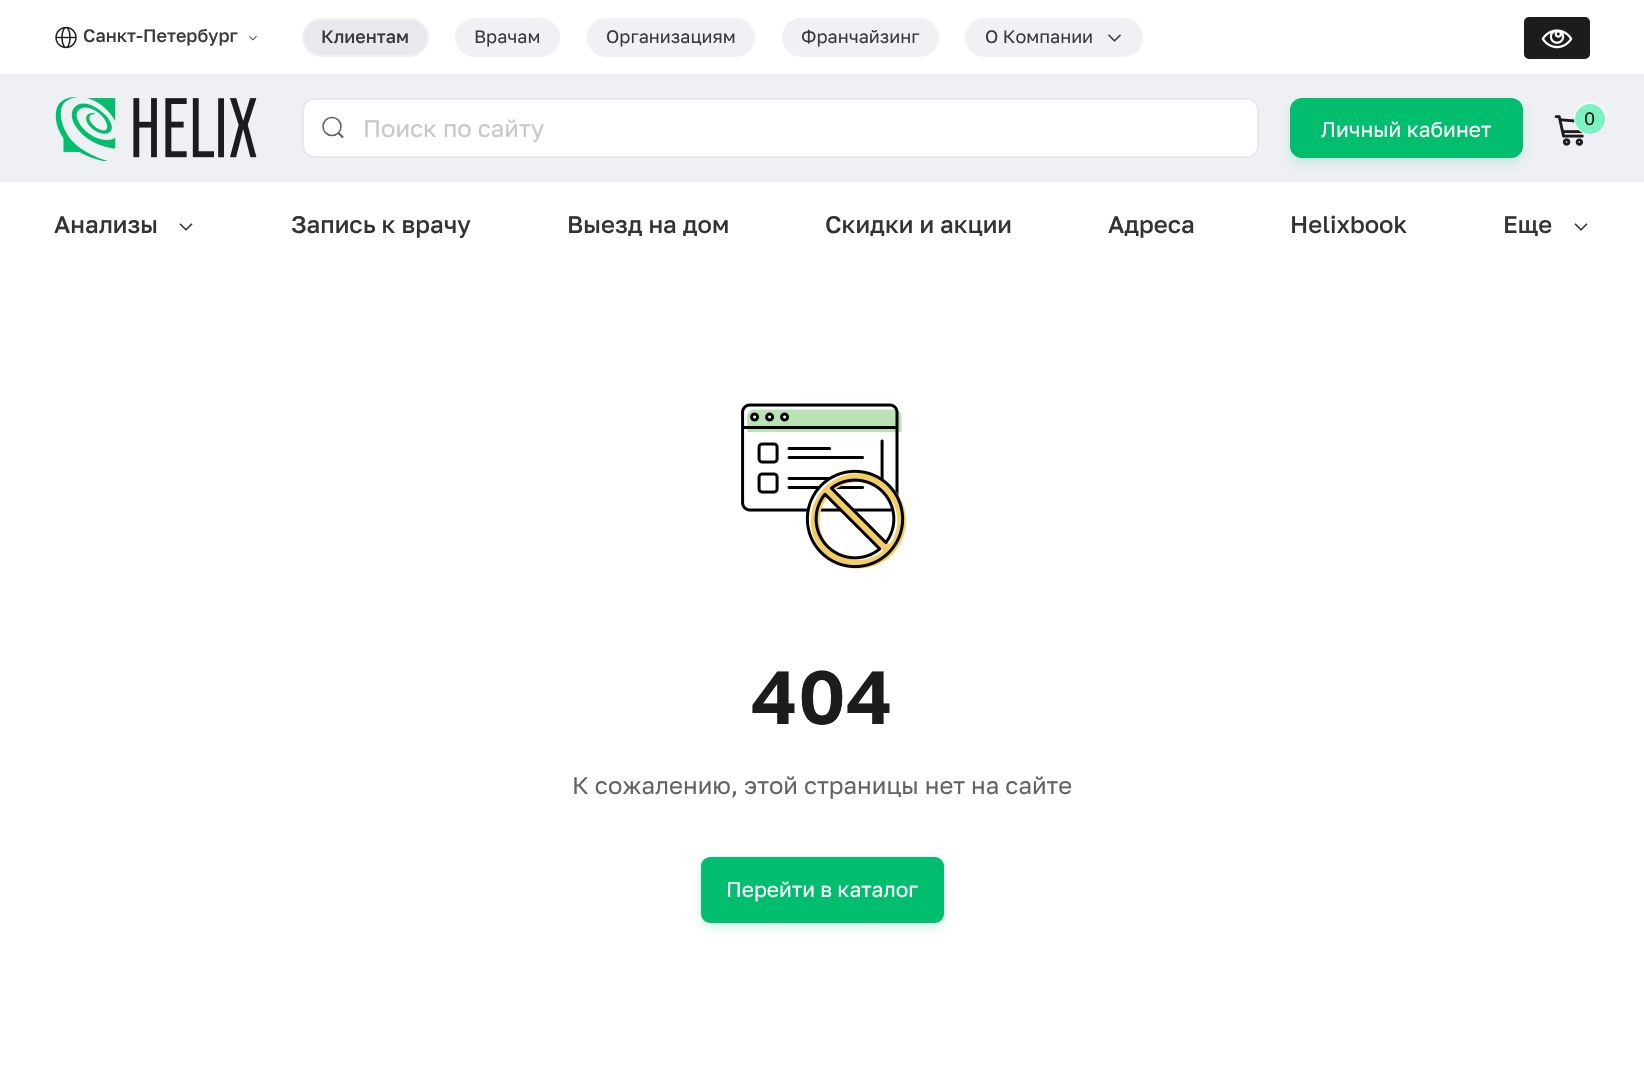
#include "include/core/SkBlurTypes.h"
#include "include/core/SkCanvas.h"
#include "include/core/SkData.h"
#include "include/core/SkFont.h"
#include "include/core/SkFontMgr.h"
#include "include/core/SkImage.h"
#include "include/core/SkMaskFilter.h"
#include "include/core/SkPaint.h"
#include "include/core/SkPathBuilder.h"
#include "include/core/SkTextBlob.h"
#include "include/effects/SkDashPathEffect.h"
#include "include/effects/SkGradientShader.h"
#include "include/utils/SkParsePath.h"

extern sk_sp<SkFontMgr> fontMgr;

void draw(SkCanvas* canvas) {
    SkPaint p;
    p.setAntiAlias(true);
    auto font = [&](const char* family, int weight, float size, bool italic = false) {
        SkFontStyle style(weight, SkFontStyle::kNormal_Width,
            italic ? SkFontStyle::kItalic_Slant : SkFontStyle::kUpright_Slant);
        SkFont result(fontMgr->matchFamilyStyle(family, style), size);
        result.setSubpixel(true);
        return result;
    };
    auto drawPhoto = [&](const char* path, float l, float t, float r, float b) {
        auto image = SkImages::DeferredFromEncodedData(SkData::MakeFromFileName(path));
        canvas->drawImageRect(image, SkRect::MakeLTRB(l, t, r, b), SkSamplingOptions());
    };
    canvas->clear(0xFFFFFFFF);
    drawPhoto("media/1.png", 55, 26, 77, 49);
    auto font1 = font("Golos Text", 500, 18);
    p.setColor(0xFF3A3A3C);
    canvas->drawString("Санкт-Петербург", 83, 42, font1, p);
    drawPhoto("media/2.png", 249, 36, 257, 41);
    p.setColor(0xFFE8E8ED);
    canvas->drawRoundRect(SkRect::MakeLTRB(303, 19, 428, 56), 18.5f, 18.5f, p);
    p.setStyle(SkPaint::kStroke_Style);
    p.setStrokeWidth(2);
    p.setColor(0xFFF0F0F5);
    canvas->drawRoundRect(SkRect::MakeLTRB(303, 19, 428, 56), 18.5f, 18.5f, p);
    p.setStyle(SkPaint::kFill_Style);
    p.setColor(0xFF3A3A3C);
    canvas->drawString("Клиентам", 321, 43, font1, p);
    p.setColor(0xFFF0F0F5);
    canvas->drawRoundRect(SkRect::MakeLTRB(456, 19, 559, 56), 18.5f, 18.5f, p);
    p.setStyle(SkPaint::kStroke_Style);
    canvas->drawRoundRect(SkRect::MakeLTRB(456, 19, 559, 56), 18.5f, 18.5f, p);
    auto font2 = font("Golos Text", 400, 18);
    p.setStyle(SkPaint::kFill_Style);
    p.setColor(0xFF3A3A3C);
    canvas->drawString("Врачам", 474, 43, font2, p);
    p.setColor(0xFFF0F0F5);
    canvas->drawRoundRect(SkRect::MakeLTRB(588, 19, 754, 56), 18.5f, 18.5f, p);
    p.setStyle(SkPaint::kStroke_Style);
    canvas->drawRoundRect(SkRect::MakeLTRB(588, 19, 754, 56), 18.5f, 18.5f, p);
    p.setStyle(SkPaint::kFill_Style);
    p.setColor(0xFF3A3A3C);
    canvas->drawString("Организациям", 606, 43, font2, p);
    p.setColor(0xFFF0F0F5);
    canvas->drawRoundRect(SkRect::MakeLTRB(783, 19, 938, 56), 18.5f, 18.5f, p);
    p.setStyle(SkPaint::kStroke_Style);
    canvas->drawRoundRect(SkRect::MakeLTRB(783, 19, 938, 56), 18.5f, 18.5f, p);
    p.setStyle(SkPaint::kFill_Style);
    p.setColor(0xFF3A3A3C);
    canvas->drawString("Франчайзинг", 801, 43, font2, p);
    p.setColor(0xFFF0F0F5);
    canvas->drawRoundRect(SkRect::MakeLTRB(966, 19, 1142, 56), 18.5f, 18.5f, p);
    p.setStyle(SkPaint::kStroke_Style);
    canvas->drawRoundRect(SkRect::MakeLTRB(966, 19, 1142, 56), 18.5f, 18.5f, p);
    p.setStyle(SkPaint::kFill_Style);
    p.setColor(0xFF3A3A3C);
    canvas->drawString("О Компании", 985, 43, font2, p);
    drawPhoto("media/3.png", 1108, 34, 1121, 42);
    p.setColor(0xFF1C1C1E);
    canvas->drawRoundRect(SkRect::MakeLTRB(1525, 18, 1589, 58), 4, 4, p);
    p.setStyle(SkPaint::kStroke_Style);
    canvas->drawRoundRect(SkRect::MakeLTRB(1525, 18, 1589, 58), 4, 4, p);
    drawPhoto("media/4.png", 1541, 29, 1573, 49);
    p.setStyle(SkPaint::kFill_Style);
    p.setColor(0xFFEFF0F4);
    canvas->drawRect(SkRect::MakeLTRB(0, 74, 1644, 182), p);
    drawPhoto("media/5.png", 55, 97, 257, 161);
    p.setColor(0xFFFFFFFF);
    canvas->drawRoundRect(SkRect::MakeLTRB(302, 98, 1259, 158), 12, 12, p);
    p.setStyle(SkPaint::kStroke_Style);
    p.setStrokeWidth(1.5f);
    p.setColor(0xFF636366);
    canvas->drawCircle(332, 126.5f, 9, p);
    p.setStrokeWidth(2.2f);
    p.setStrokeCap(SkPaint::kRound_Cap);
    canvas->drawPath(SkPathBuilder().moveTo(339, 133.5f).lineTo(342.5f, 137).detach(), p);
    p.setStrokeWidth(2);
    p.setStrokeCap(SkPaint::kButt_Cap);
    p.setColor(0xFFE8E8ED);
    canvas->drawRoundRect(SkRect::MakeLTRB(303, 99, 1258, 157), 11, 11, p);
    auto font3 = font("Golos Text", 400, 24);
    p.setStyle(SkPaint::kFill_Style);
    p.setColor(0xFFC7C7CC);
    canvas->drawString("Поиск по сайту", 363, 137, font3, p);
    p.setColor(0x2900BE6E);
    p.setMaskFilter(SkMaskFilter::MakeBlur(kNormal_SkBlurStyle, 6));
    canvas->drawRoundRect(SkRect::MakeLTRB(1290, 104, 1523, 164), 12, 12, p);
    p.setMaskFilter(nullptr);
    p.setColor(0xFF00BE6E);
    canvas->drawRoundRect(SkRect::MakeLTRB(1291, 99, 1522, 157), 11, 11, p);
    p.setStyle(SkPaint::kStroke_Style);
    canvas->drawRoundRect(SkRect::MakeLTRB(1291, 99, 1522, 157), 11, 11, p);
    auto font4 = font("Golos Text", 400, 21);
    p.setStyle(SkPaint::kFill_Style);
    p.setColor(0xFFFFFFFF);
    canvas->drawString("Личный кабинет", 1321, 137, font4, p);
    drawPhoto("media/6.png", 1554, 115, 1584, 146);
    p.setStyle(SkPaint::kStroke_Style);
    canvas->drawCircle(1590.5f, 118.5f, 15.5f, p);
    p.setStyle(SkPaint::kFill_Style);
    p.setColor(0xFF7DF2C1);
    canvas->drawCircle(1590, 119, 15, p);
    p.setColor(0xFF1C1C1E);
    canvas->drawString("0", 1584, 125, font2, p);
    auto font5 = font("Golos Text", 500, 24);
    p.setColor(0xFF313335);
    canvas->drawString("Анализы", 54, 233, font5, p);
    drawPhoto("media/7.png", 179, 223, 193, 231);
    {
        const struct { const char* s; float x, y; } items[] = {
            {"Запись к врачу", 291, 233},
            {"Выезд на дом", 567, 233},
            {"Скидки и акции", 825, 233},
            {"Адреса", 1108, 233},
            {"Helixbook", 1290, 233},
            {"Еще", 1503, 233},
        };
        for (auto [s, x, y] : items) {
            canvas->drawString(s, x, y, font5, p);
        }
    }
    drawPhoto("media/7.png", 1574, 223, 1588, 231);
    drawPhoto("media/8.png", 741, 403, 906, 569);
    auto font6 = font("Golos Text", 600, 75);
    p.setColor(0xFF1C1C1E);
    canvas->drawString("404", 751, 724, font6, p);
    p.setColor(0xFF636366);
    canvas->drawString("К сожалению, этой страницы нет на сайте", 572, 794, font3, p);
    p.setColor(0x2900BE6E);
    p.setMaskFilter(SkMaskFilter::MakeBlur(kNormal_SkBlurStyle, 6));
    canvas->drawRoundRect(SkRect::MakeLTRB(701, 863, 944, 929), 9, 9, p);
    p.setMaskFilter(nullptr);
    p.setColor(0xFF00BE6E);
    canvas->drawRoundRect(SkRect::MakeLTRB(702, 858, 943, 922), 8, 8, p);
    p.setStyle(SkPaint::kStroke_Style);
    canvas->drawRoundRect(SkRect::MakeLTRB(702, 858, 943, 922), 8, 8, p);
    p.setStyle(SkPaint::kFill_Style);
    p.setColor(0xFFFFFFFF);
    canvas->drawString("Перейти в каталог", 726, 897, font4, p);
}
